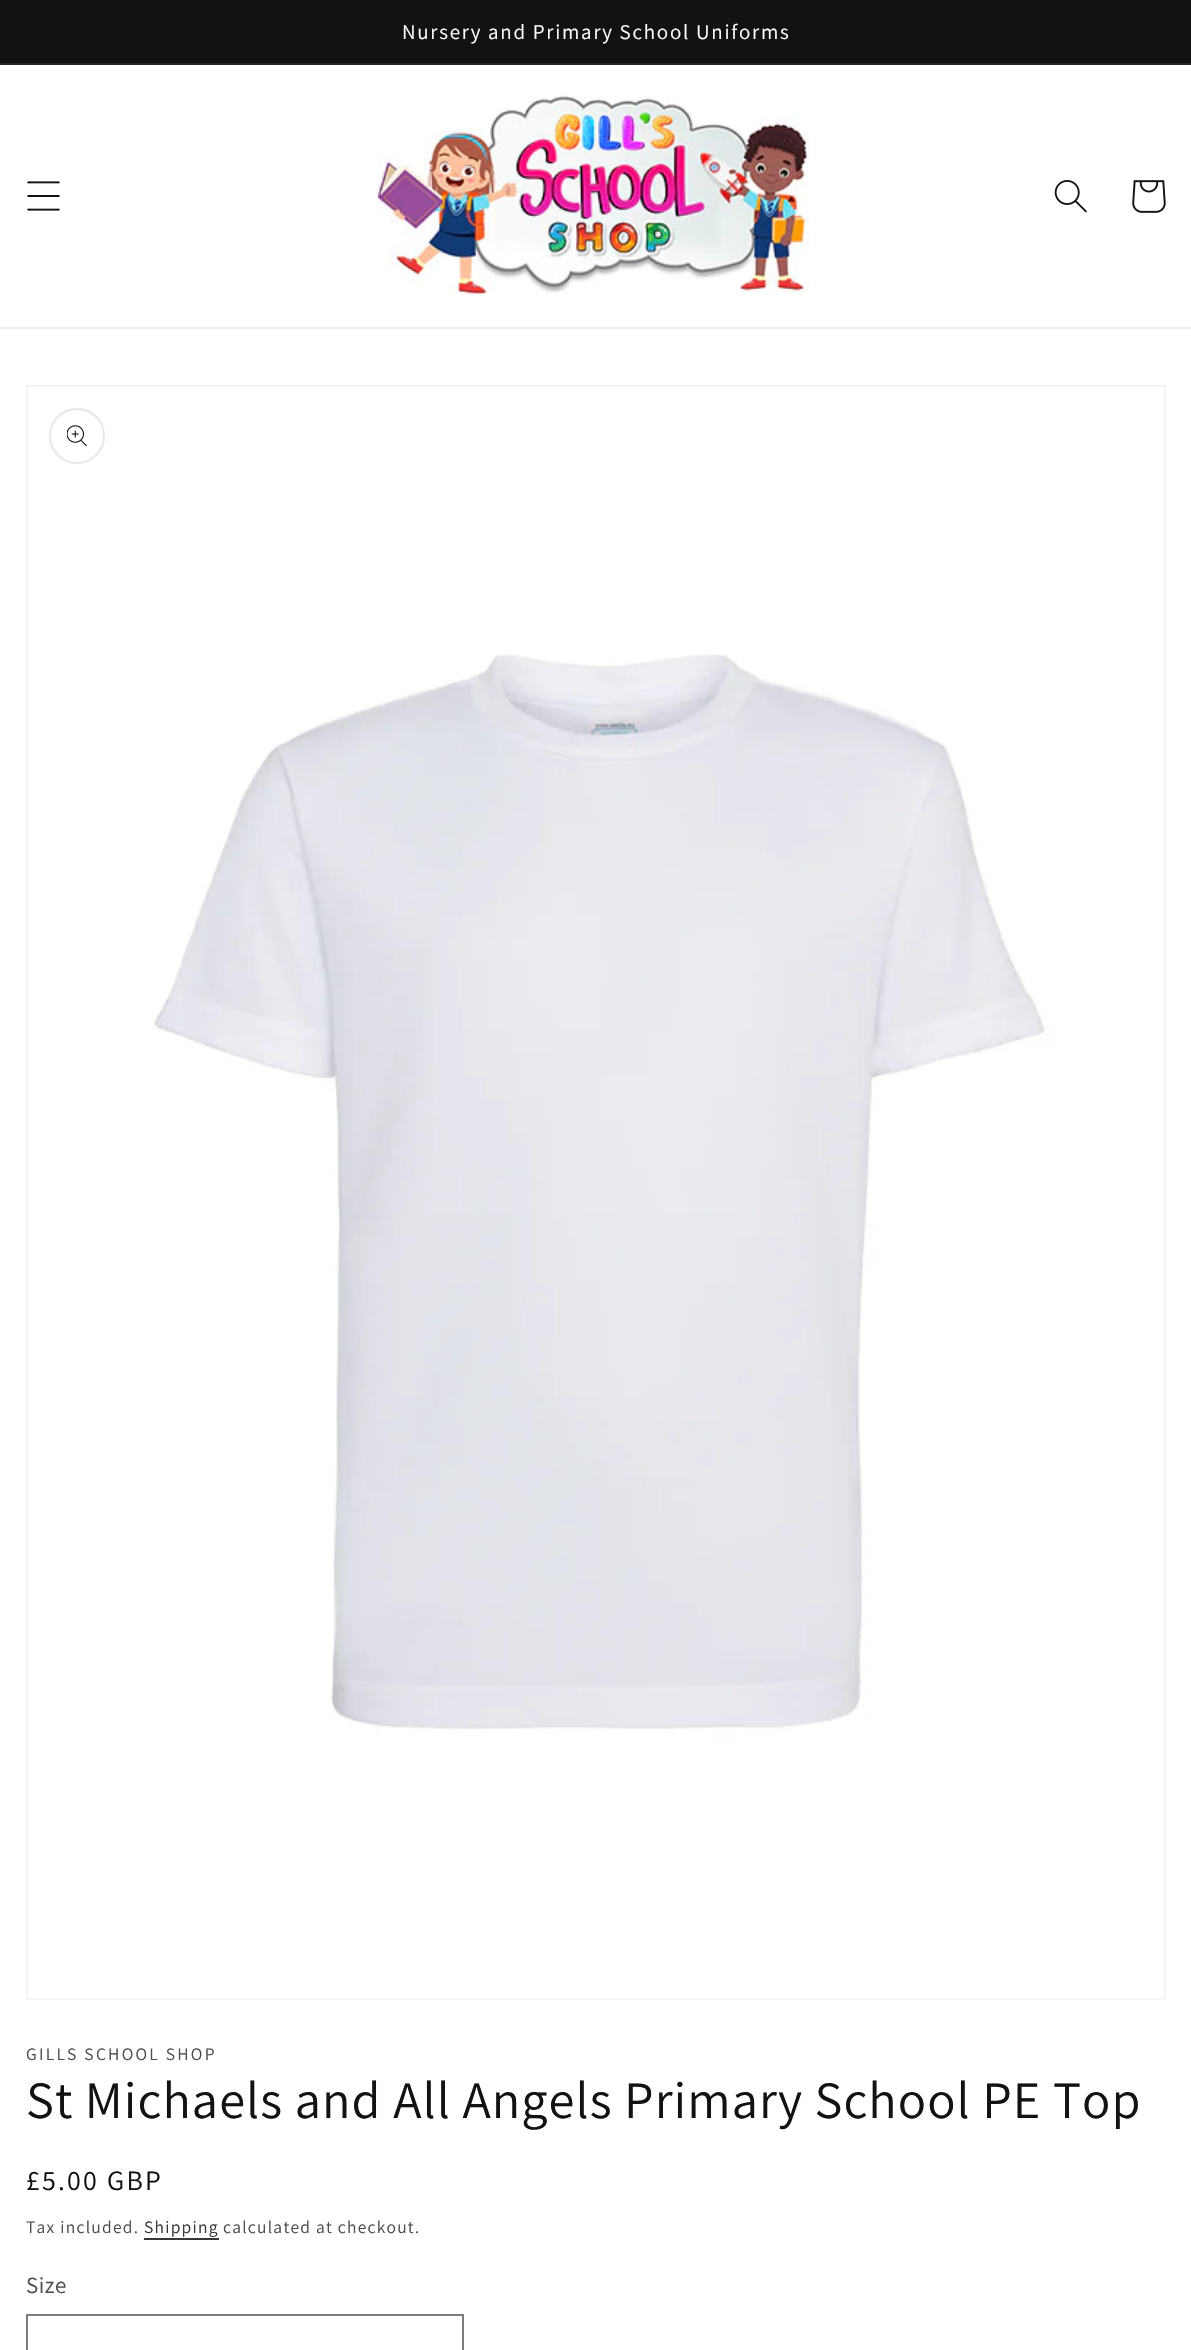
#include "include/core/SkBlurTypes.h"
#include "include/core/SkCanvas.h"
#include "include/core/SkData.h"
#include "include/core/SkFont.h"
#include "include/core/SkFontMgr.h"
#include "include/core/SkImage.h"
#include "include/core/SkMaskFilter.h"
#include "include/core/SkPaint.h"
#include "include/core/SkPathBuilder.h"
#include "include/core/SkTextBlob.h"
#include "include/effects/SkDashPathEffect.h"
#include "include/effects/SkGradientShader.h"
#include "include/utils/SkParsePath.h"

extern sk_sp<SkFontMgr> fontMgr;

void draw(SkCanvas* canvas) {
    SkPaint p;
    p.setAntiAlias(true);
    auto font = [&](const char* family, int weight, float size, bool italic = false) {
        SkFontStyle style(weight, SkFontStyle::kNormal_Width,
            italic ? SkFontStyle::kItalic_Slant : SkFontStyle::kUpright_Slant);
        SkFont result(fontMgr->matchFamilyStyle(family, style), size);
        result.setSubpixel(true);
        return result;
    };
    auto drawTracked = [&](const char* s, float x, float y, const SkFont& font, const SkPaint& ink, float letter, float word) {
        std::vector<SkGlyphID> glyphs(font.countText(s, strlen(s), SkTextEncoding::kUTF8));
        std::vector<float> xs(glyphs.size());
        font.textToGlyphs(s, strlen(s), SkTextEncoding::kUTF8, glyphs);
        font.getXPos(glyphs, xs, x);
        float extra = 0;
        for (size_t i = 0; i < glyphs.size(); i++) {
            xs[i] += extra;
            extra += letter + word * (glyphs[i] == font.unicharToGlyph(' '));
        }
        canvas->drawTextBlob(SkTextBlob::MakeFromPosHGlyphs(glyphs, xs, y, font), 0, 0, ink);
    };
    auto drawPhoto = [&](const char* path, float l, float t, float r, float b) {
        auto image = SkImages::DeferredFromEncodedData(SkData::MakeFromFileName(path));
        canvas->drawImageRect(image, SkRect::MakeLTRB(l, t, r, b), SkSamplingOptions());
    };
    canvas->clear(0xFFFFFFFF);
    p.setColor(0xFF121212);
    canvas->drawRect(SkRect::MakeLTRB(0, 0, 1191, 63), p);
    p.setColor(0xFF252525);
    canvas->drawRect(SkRect::MakeLTRB(0, 63, 1191, 65), p);
    auto font1 = font("Assistant", 400, 21);
    p.setColor(0xFFFFFFFF);
    drawTracked("Nursery and Primary School Uniforms", 402, 39, font1, p, 1.75f, 0);
    p.setColor(0xFFECECEC);
    canvas->drawRect(SkRect::MakeLTRB(0, 327, 1191, 329), p);
    drawPhoto("media/1.png", 27, 181, 60, 211);
    drawPhoto("media/2.png", 378, 95, 810, 296);
    drawPhoto("media/3.png", 1054, 180, 1087, 213);
    drawPhoto("media/4.png", 1132, 180, 1166, 213);
    p.setStyle(SkPaint::kStroke_Style);
    p.setStrokeWidth(2);
    p.setColor(0xFFF3F3F3);
    canvas->drawRect(SkRect::MakeLTRB(27, 386, 1165, 1999), p);
    drawPhoto("media/5.png", 28, 654, 1164, 1999);
    p.setColor(0xFFE7E7E7);
    canvas->drawCircle(77, 436, 27, p);
    drawPhoto("media/6.png", 67, 425, 87, 447);
    auto font2 = font("Assistant", 400, 17.5f);
    p.setStyle(SkPaint::kFill_Style);
    p.setColor(0xFF4D4D4D);
    drawTracked("GILLS SCHOOL SHOP", 26, 2060, font2, p, 2.25f, 0);
    auto font3 = font("Assistant", 400, 52.5f);
    p.setColor(0xFF121212);
    drawTracked("St Michaels and All Angels Primary School PE Top", 26, 2118, font3, p, 1.05f, 0);
    auto font4 = font("Assistant", 400, 28);
    drawTracked("£5.00 GBP", 26, 2190, font4, p, 2.25f, 0);
    p.setColor(0xFF4D4D4D);
    drawTracked("Tax included.", 26, 2233, font2, p, 1.25f, 0);
    p.setColor(0xFF363636);
    drawTracked("Shipping", 144, 2233, font2, p, 1.25f, 0);
    canvas->drawRect(SkRect::MakeLTRB(144, 2238, 219, 2240), p);
    p.setColor(0xFF4D4D4D);
    drawTracked("calculated at checkout.", 223, 2233, font2, p, 1.25f, 0);
    auto font5 = font("Assistant", 400, 23);
    drawTracked("Size", 26, 2293, font5, p, 0.5f, 0);
    p.setStyle(SkPaint::kStroke_Style);
    p.setColor(0xFF7D7D7D);
    canvas->drawRect(SkRect::MakeLTRB(27, 2315, 463, 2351), p);
}
